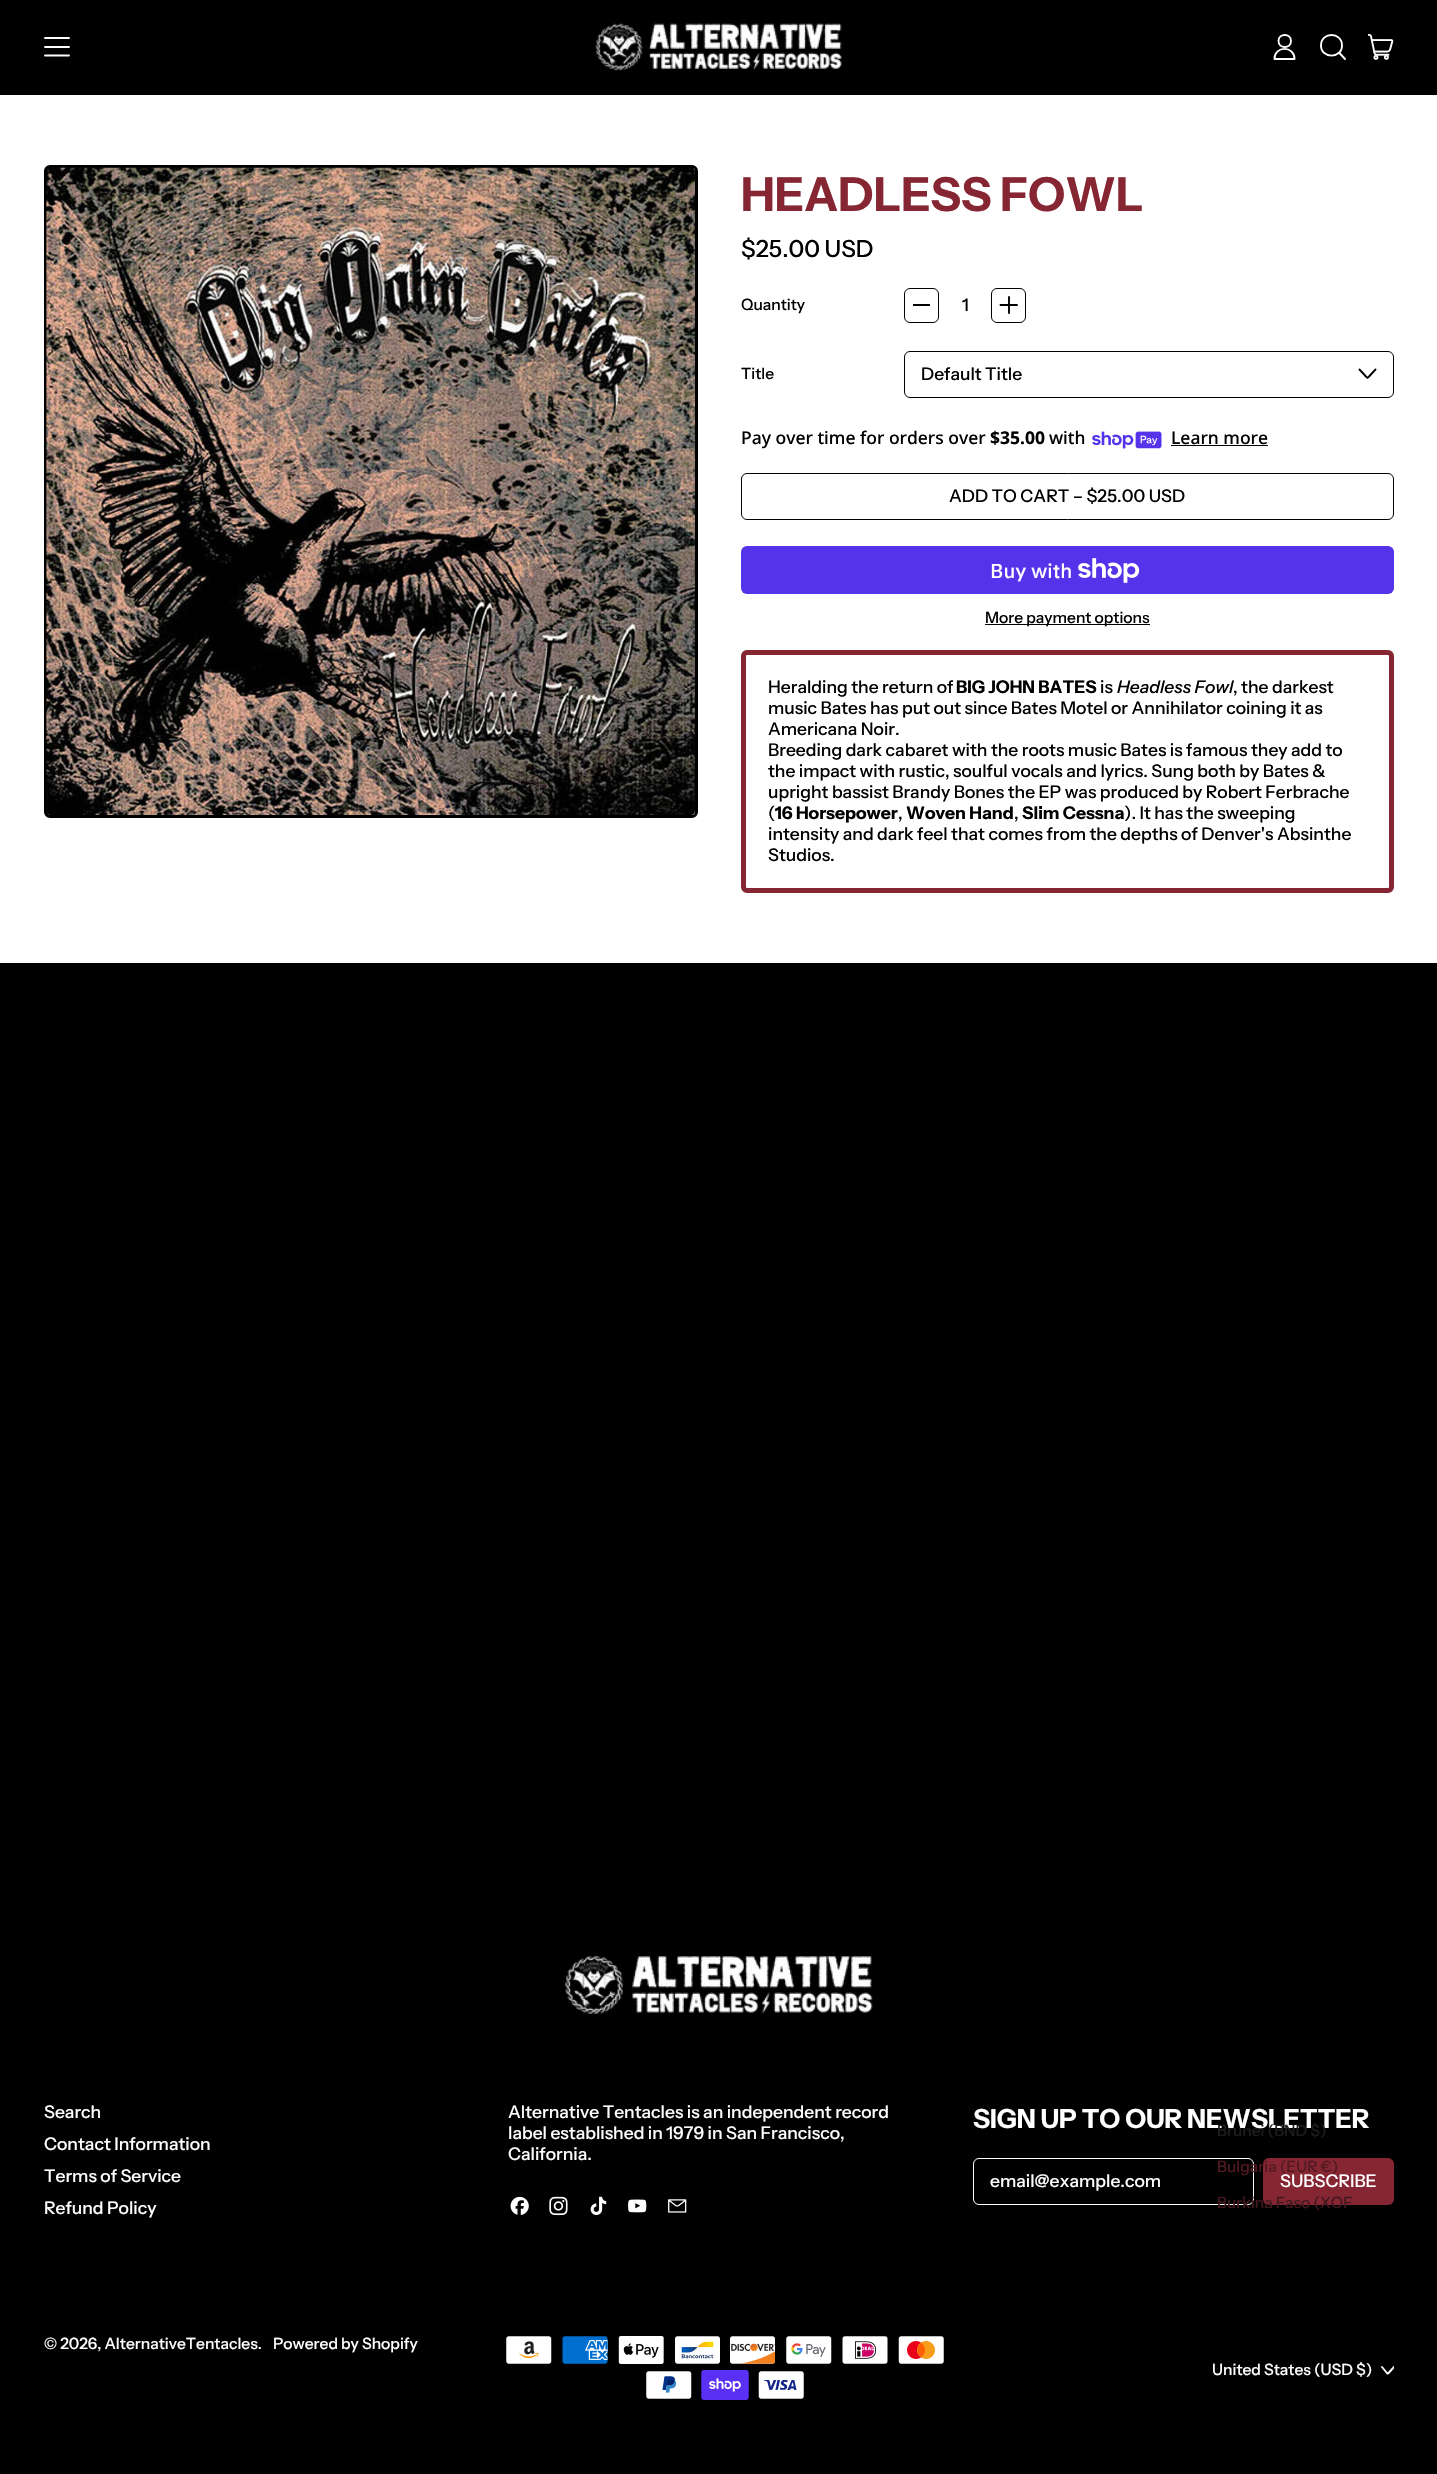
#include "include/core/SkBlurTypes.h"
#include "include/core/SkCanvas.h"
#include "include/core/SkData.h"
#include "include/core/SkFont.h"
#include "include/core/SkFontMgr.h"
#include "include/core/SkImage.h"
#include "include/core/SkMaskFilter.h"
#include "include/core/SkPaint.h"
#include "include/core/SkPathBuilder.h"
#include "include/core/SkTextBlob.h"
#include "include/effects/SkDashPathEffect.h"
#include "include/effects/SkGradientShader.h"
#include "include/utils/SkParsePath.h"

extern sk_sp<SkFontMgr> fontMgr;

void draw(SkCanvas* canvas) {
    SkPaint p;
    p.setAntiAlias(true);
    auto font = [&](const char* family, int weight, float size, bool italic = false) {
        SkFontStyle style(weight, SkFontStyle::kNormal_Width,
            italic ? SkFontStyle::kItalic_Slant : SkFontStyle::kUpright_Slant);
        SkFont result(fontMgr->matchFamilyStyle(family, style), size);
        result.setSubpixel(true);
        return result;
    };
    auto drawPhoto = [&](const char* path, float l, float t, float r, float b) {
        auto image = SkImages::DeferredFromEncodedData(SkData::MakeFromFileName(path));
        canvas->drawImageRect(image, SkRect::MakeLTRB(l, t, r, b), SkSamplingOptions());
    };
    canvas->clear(0xFF000000);
    p.setStyle(SkPaint::kStroke_Style);
    p.setStrokeWidth(1.9f);
    p.setStrokeCap(SkPaint::kRound_Cap);
    p.setStrokeJoin(SkPaint::kRound_Join);
    p.setColor(0xFFFFFFFF);
    canvas->drawPath(SkPathBuilder().moveTo(69, 55.5f).lineTo(45, 55.5f).moveTo(69, 47).lineTo(45, 47).moveTo(69, 38).lineTo(45, 38).detach(), p);
    drawPhoto("media/1.png", 595, 23, 842, 71);
    canvas->drawPath(SkPathBuilder().moveTo(1278.5f, 41).cubicTo(1278.5f, 49, 1291, 49, 1291, 41).cubicTo(1291, 33, 1278.5f, 33, 1278.5f, 41).close().moveTo(1274.5f, 59).cubicTo(1274.5f, 45.5f, 1294.5f, 45.5f, 1294.5f, 59).close().detach(), p);
    canvas->drawPath(SkPathBuilder().moveTo(1321, 45.5f).cubicTo(1321, 59, 1342, 59, 1342, 45.5f).cubicTo(1342, 31.5f, 1321, 31.5f, 1321, 45.5f).close().moveTo(1345, 59).lineTo(1339, 52.5f).detach(), p);
    drawPhoto("media/2.png", 1368, 34, 1394, 60);
    p.setStyle(SkPaint::kFill_Style);
    canvas->drawRect(SkRect::MakeLTRB(0, 95, 1437, 963), p);
    p.setStyle(SkPaint::kStroke_Style);
    p.setStrokeWidth(3);
    p.setStrokeCap(SkPaint::kButt_Cap);
    p.setStrokeJoin(SkPaint::kMiter_Join);
    p.setColor(0xFF000000);
    canvas->drawRoundRect(SkRect::MakeLTRB(45.5f, 166.5f, 696.5f, 816.5f), 4.5f, 4.5f, p);
    drawPhoto("media/3.png", 46, 167, 695, 815);
    auto font1 = font("Instrument Sans", 700, 46.75f);
    p.setStyle(SkPaint::kFill_Style);
    p.setColor(0xFF862633);
    canvas->drawString("HEADLESS FOWL", 741, 211, font1, p);
    auto font2 = font("Instrument Sans", 500, 23.5f);
    p.setColor(0xFF000000);
    canvas->drawString("$25.00 USD", 741, 257, font2, p);
    auto font3 = font("Instrument Sans", 500, 15.6f);
    canvas->drawString("Quantity", 741, 310, font3, p);
    p.setStyle(SkPaint::kStroke_Style);
    p.setStrokeWidth(1);
    canvas->drawRoundRect(SkRect::MakeLTRB(904.5f, 288.5f, 938.5f, 322.5f), 5.5f, 5.5f, p);
    canvas->save();
    canvas->clipRect(SkRect::MakeLTRB(913, 296, 930, 314));
    p.setStrokeWidth(1.9f);
    p.setStrokeCap(SkPaint::kRound_Cap);
    p.setStrokeJoin(SkPaint::kRound_Join);
    canvas->drawPath(SkPathBuilder().moveTo(929.5f, 305).lineTo(913, 305).detach(), p);
    canvas->restore();
    auto font4 = font("Instrument Sans", 500, 17.5f);
    p.setStyle(SkPaint::kFill_Style);
    canvas->drawString("1", 962, 311, font4, p);
    p.setStyle(SkPaint::kStroke_Style);
    p.setStrokeWidth(1);
    p.setStrokeCap(SkPaint::kButt_Cap);
    p.setStrokeJoin(SkPaint::kMiter_Join);
    canvas->drawRoundRect(SkRect::MakeLTRB(991.5f, 288.5f, 1025.5f, 322.5f), 5.5f, 5.5f, p);
    p.setStrokeWidth(1.9f);
    p.setStrokeCap(SkPaint::kRound_Cap);
    p.setStrokeJoin(SkPaint::kRound_Join);
    canvas->drawPath(SkPathBuilder().moveTo(1009, 297).lineTo(1009, 313).moveTo(1017, 305).lineTo(1000.5f, 305).detach(), p);
    p.setStyle(SkPaint::kFill_Style);
    canvas->drawString("Title", 741, 379, font3, p);
    p.setStyle(SkPaint::kStroke_Style);
    canvas->drawPath(SkPathBuilder().moveTo(1359.5f, 369.5f).lineTo(1366, 376.5f).cubicTo(1368, 378.5f, 1367, 378.5f, 1369, 376.5f).lineTo(1375.5f, 369.5f).detach(), p);
    p.setStrokeWidth(1);
    p.setStrokeCap(SkPaint::kButt_Cap);
    p.setStrokeJoin(SkPaint::kMiter_Join);
    canvas->drawRoundRect(SkRect::MakeLTRB(904.5f, 351.5f, 1393.5f, 397.5f), 5.5f, 5.5f, p);
    p.setStyle(SkPaint::kFill_Style);
    canvas->drawString("Default Title", 921, 380, font4, p);
    auto font5 = font("Noto Sans", 500, 17.5f);
    canvas->drawString("Pay over time for orders over", 741, 444, font5, p);
    auto font6 = font("Noto Sans", 700, 17.5f);
    canvas->drawString("$35.00", 990, 444, font6, p);
    canvas->drawString("with", 1049, 444, font5, p);
    drawPhoto("media/4.png", 1092, 431, 1162, 449);
    canvas->drawString("Learn more", 1171, 444, font5, p);
    canvas->drawRect(SkRect::MakeLTRB(1171, 445, 1268, 446), p);
    p.setStyle(SkPaint::kStroke_Style);
    canvas->drawRoundRect(SkRect::MakeLTRB(741.5f, 473.5f, 1393.5f, 519.5f), 5.5f, 5.5f, p);
    p.setStyle(SkPaint::kFill_Style);
    canvas->drawString("ADD TO CART – $25.00 USD", 949, 502, font4, p);
    p.setColor(0xFF5433EB);
    canvas->drawRoundRect(SkRect::MakeLTRB(741, 546, 1394, 594), 6, 6, p);
    auto font7 = font("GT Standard", 500, 20);
    p.setColor(0xFFFFFFFF);
    canvas->drawString("Buy with", 990, 578, font7, p);
    drawPhoto("media/5.png", 1078, 558, 1140, 583);
    p.setColor(0xFF000000);
    canvas->drawRect(SkRect::MakeLTRB(985, 624, 1150, 625), p);
    canvas->drawString("More payment options", 985, 623, font3, p);
    p.setStyle(SkPaint::kStroke_Style);
    p.setStrokeWidth(5);
    p.setColor(0xFF862633);
    canvas->drawRoundRect(SkRect::MakeLTRB(743.5f, 652.5f, 1391.5f, 890.5f), 3.5f, 3.5f, p);
    p.setStyle(SkPaint::kFill_Style);
    p.setColor(0xFF000000);
    canvas->drawString("Heralding the return of", 768, 693, font4, p);
    auto font8 = font("Instrument Sans", 700, 17.5f);
    canvas->drawString("BIG JOHN BATES", 956, 693, font8, p);
    canvas->drawString("is", 1100, 693, font4, p);
    auto font9 = font("Instrument Sans", 500, 17.5f, true);
    canvas->drawString("Headless Fowl", 1117, 693, font9, p);
    {
        const struct { const char* s; float x, y; } items[] = {
            {", the darkest", 1233, 693},
            {"music Bates has put out since Bates Motel or Annihilator coining it as", 768, 714},
            {"Americana Noir.", 768, 735},
            {"Breeding dark cabaret with the roots music Bates is famous they add to", 768, 756},
            {"the impact with rustic, soulful vocals and lyrics. Sung both by Bates &", 768, 777},
            {"upright bassist Brandy Bones the EP was produced by Robert Ferbrache", 768, 798},
            {"(", 768, 819},
        };
        for (auto [s, x, y] : items) {
            canvas->drawString(s, x, y, font4, p);
        }
    }
    canvas->drawString("16 Horsepower", 775, 819, font8, p);
    canvas->drawString(",", 898, 819, font4, p);
    canvas->drawString("Woven Hand", 906, 819, font8, p);
    canvas->drawString(",", 1014, 819, font4, p);
    canvas->drawString("Slim Cessna", 1022, 819, font8, p);
    {
        const struct { const char* s; float x, y; } items[] = {
            {"). It has the sweeping", 1124, 819},
            {"intensity and dark feel that comes from the depths of Denver's Absinthe", 768, 840},
            {"Studios.", 768, 861},
        };
        for (auto [s, x, y] : items) {
            canvas->drawString(s, x, y, font4, p);
        }
    }
    drawPhoto("media/6.png", 564, 1956, 873, 2014);
    p.setColor(0xFFFFFFFF);
    {
        const struct { const char* s; float x, y; } items[] = {
            {"Search", 44, 2118},
            {"Contact Information", 44, 2150},
            {"Terms of Service", 44, 2182},
            {"Refund Policy", 44, 2214},
            {"Alternative Tentacles is an independent record", 508, 2118},
            {"label established in 1979 in San Francisco,", 508, 2139},
            {"California.", 508, 2160},
        };
        for (auto [s, x, y] : items) {
            canvas->drawString(s, x, y, font4, p);
        }
    }
    drawPhoto("media/7.png", 510, 2196, 529, 2215);
    drawPhoto("media/8.png", 549, 2196, 568, 2216);
    drawPhoto("media/9.png", 590, 2196, 607, 2216);
    drawPhoto("media/10.png", 628, 2199, 647, 2213);
    drawPhoto("media/11.png", 668, 2199, 687, 2213);
    auto font10 = font("Instrument Sans", 700, 26.25f);
    canvas->drawString("SIGN UP TO OUR NEWSLETTER", 973, 2128, font10, p);
    p.setStyle(SkPaint::kStroke_Style);
    p.setStrokeWidth(1);
    canvas->drawRoundRect(SkRect::MakeLTRB(973.5f, 2158.5f, 1253.5f, 2204.5f), 5.5f, 5.5f, p);
    p.setStyle(SkPaint::kFill_Style);
    canvas->drawString("email@example.com", 990, 2187, font4, p);
    p.setColor(0xFF862633);
    canvas->drawRoundRect(SkRect::MakeLTRB(1263, 2158, 1394, 2205), 6, 6, p);
    p.setColor(0xFFFFFFFF);
    canvas->drawString("SUBSCRIBE", 1280, 2187, font4, p);
    canvas->drawString("© 2026, AlternativeTentacles.", 44, 2349, font3, p);
    canvas->drawString("Powered by Shopify", 273, 2349, font3, p);
    drawPhoto("media/12.png", 506, 2336, 552, 2364);
    drawPhoto("media/13.png", 562, 2336, 608, 2364);
    drawPhoto("media/14.png", 618, 2336, 664, 2364);
    drawPhoto("media/15.png", 675, 2336, 720, 2364);
    drawPhoto("media/16.png", 730, 2336, 776, 2364);
    drawPhoto("media/17.png", 786, 2336, 832, 2364);
    drawPhoto("media/18.png", 842, 2336, 888, 2364);
    drawPhoto("media/19.png", 898, 2336, 944, 2364);
    drawPhoto("media/20.png", 646, 2371, 692, 2399);
    drawPhoto("media/21.png", 701, 2370, 749, 2400);
    drawPhoto("media/22.png", 758, 2371, 804, 2399);
    p.setColor(0xFF1D1D1D);
    canvas->drawString("Brunei (BND $)", 1217, 2136, font3, p);
    p.setColor(0xFF521921);
    canvas->drawString("Bulgaria (EUR €)", 1217, 2172, font3, p);
    p.setColor(0xFF42181E);
    canvas->drawString("Burkina Faso (XOF", 1217, 2208, font3, p);
    p.setColor(0xFFFFFFFF);
    canvas->drawString("United States (USD $)", 1212, 2375, font3, p);
    canvas->save();
    canvas->clipRect(SkRect::MakeLTRB(1381, 2364, 1394, 2376));
    p.setStyle(SkPaint::kStroke_Style);
    p.setStrokeWidth(1.9f);
    p.setStrokeCap(SkPaint::kRound_Cap);
    p.setStrokeJoin(SkPaint::kRound_Join);
    canvas->drawPath(SkPathBuilder().moveTo(1382, 2367).lineTo(1386.5f, 2372.5f).cubicTo(1388, 2374, 1387.5f, 2374, 1389, 2372.5f).lineTo(1394, 2367).detach(), p);
    canvas->restore();
}
